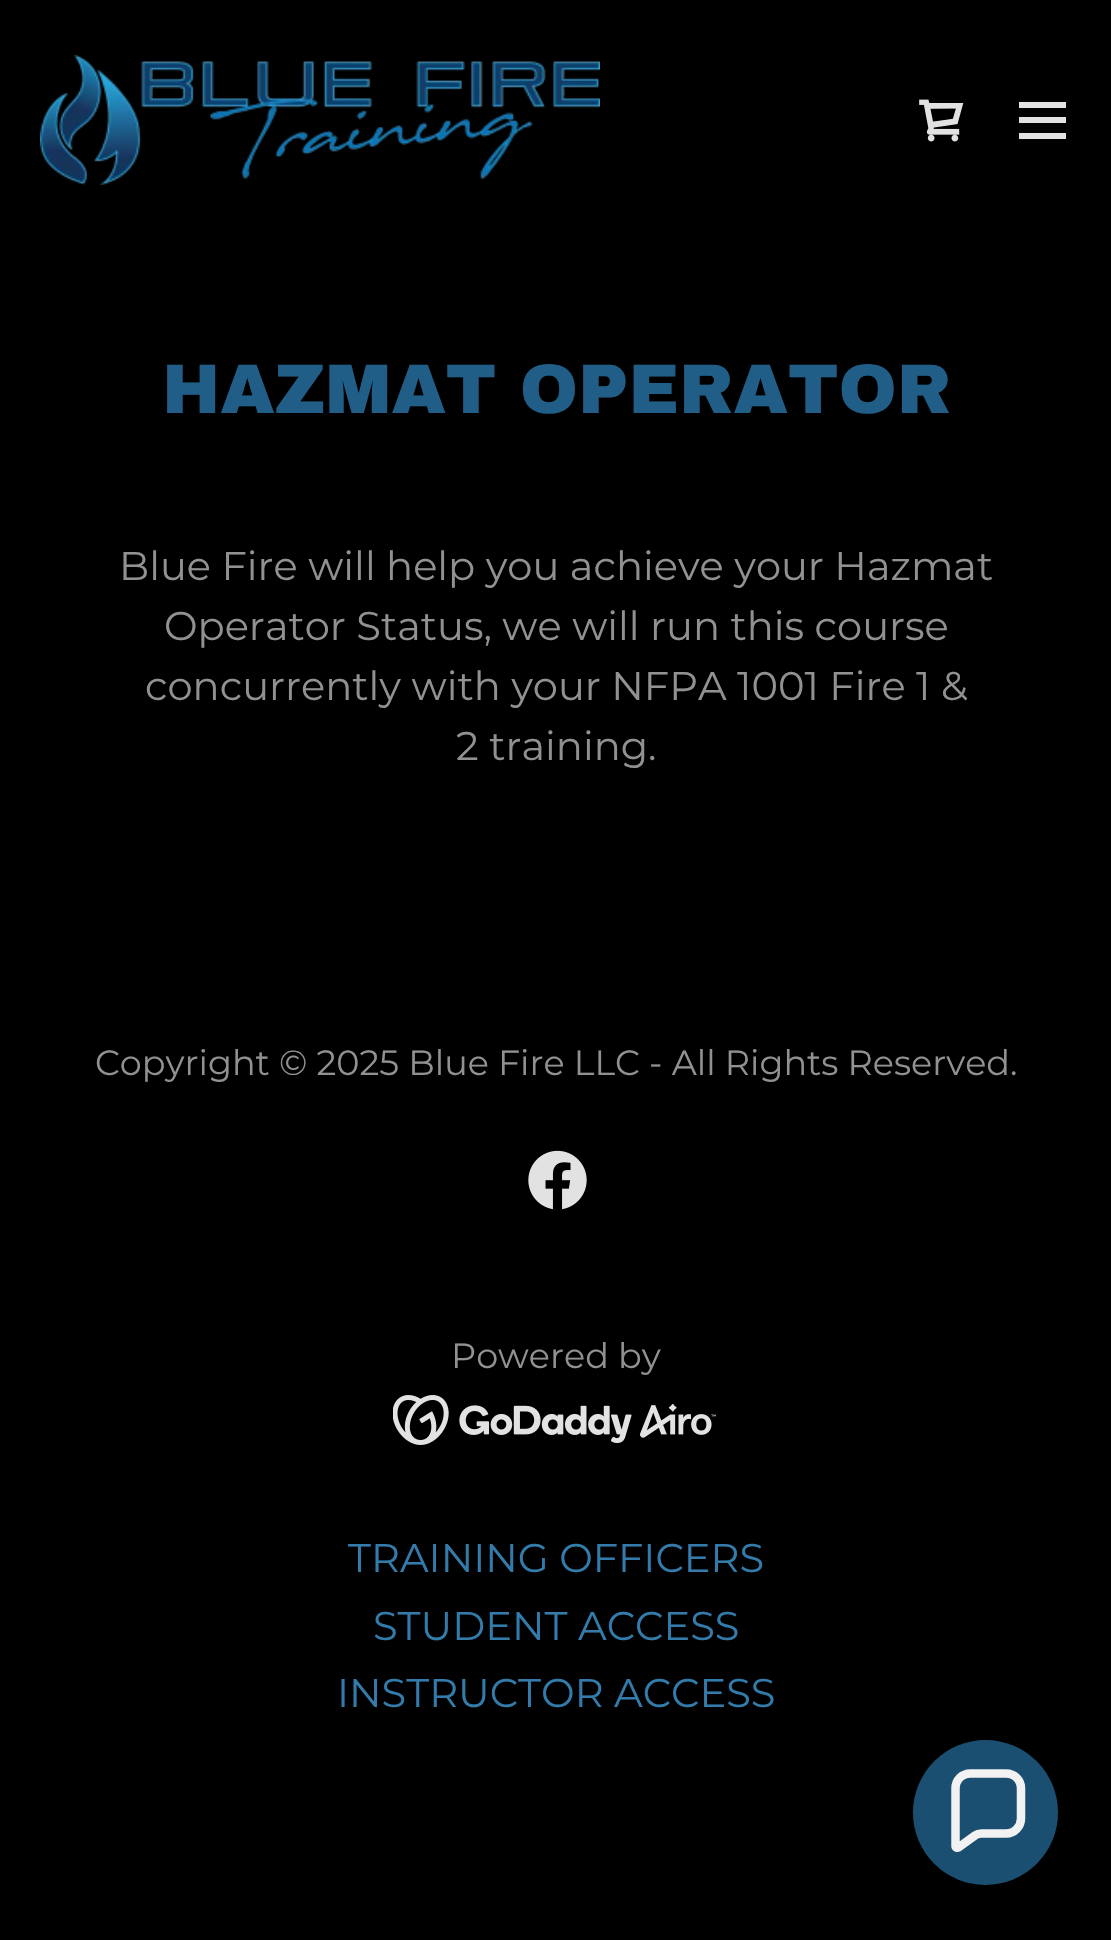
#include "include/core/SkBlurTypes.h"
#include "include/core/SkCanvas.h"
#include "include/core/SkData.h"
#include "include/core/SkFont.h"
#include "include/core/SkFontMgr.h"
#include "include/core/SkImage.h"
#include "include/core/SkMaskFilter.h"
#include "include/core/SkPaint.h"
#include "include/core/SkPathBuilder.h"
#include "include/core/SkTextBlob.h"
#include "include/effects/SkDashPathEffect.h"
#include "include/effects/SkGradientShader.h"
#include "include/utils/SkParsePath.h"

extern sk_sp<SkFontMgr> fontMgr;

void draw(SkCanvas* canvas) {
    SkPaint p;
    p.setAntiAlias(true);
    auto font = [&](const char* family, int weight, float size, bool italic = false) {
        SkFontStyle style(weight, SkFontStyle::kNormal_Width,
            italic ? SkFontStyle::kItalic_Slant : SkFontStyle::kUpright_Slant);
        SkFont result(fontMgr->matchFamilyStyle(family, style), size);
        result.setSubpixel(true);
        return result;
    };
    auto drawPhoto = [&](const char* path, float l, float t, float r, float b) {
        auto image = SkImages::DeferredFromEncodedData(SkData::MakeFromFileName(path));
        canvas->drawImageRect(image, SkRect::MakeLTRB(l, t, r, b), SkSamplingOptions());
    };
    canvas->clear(0xFF000000);
    drawPhoto("media/1.png", 40, 55, 600, 185);
    drawPhoto("media/2.png", 919, 99, 964, 142);
    {
        const struct { float l, t, r, b; SkColor color; } items[] = {
            {1019, 102, 1066, 108, 0xFFE2E2E2},
            {1019, 117, 1066, 123, 0xFFE2E2E2},
            {1019, 133, 1066, 139, 0xFFE2E2E2},
        };
        for (auto [l, t, r, b, color] : items) {
            p.setColor(color);
            canvas->drawRect(SkRect::MakeLTRB(l, t, r, b), p);
        }
    }
    auto font1 = font("Archivo Black", 900, 70);
    p.setColor(0xFF205E87);
    canvas->drawString("HAZMAT OPERATOR", 162, 413, font1, p);
    auto font2 = font("Montserrat", 400, 40);
    p.setColor(0xFF919191);
    {
        const struct { const char* s; float x, y; } items[] = {
            {"Blue Fire will help you achieve your Hazmat", 119, 580},
            {"Operator Status, we will run this course", 164, 640},
            {"concurrently with your NFPA 1001 Fire 1 &", 145, 700},
            {"2 training.", 456, 760},
        };
        for (auto [s, x, y] : items) {
            canvas->drawString(s, x, y, font2, p);
        }
    }
    auto font3 = font("Montserrat", 400, 35);
    canvas->drawString("Copyright © 2025 Blue Fire LLC - All Rights Reserved.", 95, 1075, font3, p);
    drawPhoto("media/3.png", 528, 1150, 587, 1210);
    canvas->drawString("Powered by", 451, 1368, font3, p);
    drawPhoto("media/4.png", 393, 1395, 716, 1445);
    p.setColor(0xFF327BAB);
    {
        const struct { const char* s; float x, y; } items[] = {
            {"TRAINING OFFICERS", 348, 1572},
            {"STUDENT ACCESS", 373, 1640},
            {"INSTRUCTOR ACCESS", 337, 1707},
        };
        for (auto [s, x, y] : items) {
            canvas->drawString(s, x, y, font2, p);
        }
    }
    p.setColor(0xFF1A4F72);
    canvas->drawCircle(985.5f, 1812.5f, 72.5f, p);
    p.setStyle(SkPaint::kStroke_Style);
    p.setStrokeWidth(8.5f);
    p.setColor(0xFFF2F2F2);
    canvas->drawPath(SkPathBuilder().moveTo(1006, 1773.5f).lineTo(970.5f, 1773.5f).cubicTo(962, 1773.5f, 955.5f, 1780, 955.5f, 1788.5f).lineTo(955.5f, 1846).cubicTo(955.5f, 1847.5f, 957, 1848, 958.5f, 1847.5f).lineTo(975, 1835.5f).cubicTo(977, 1834, 979, 1833.5f, 981.5f, 1833.5f).lineTo(1006, 1833.5f).cubicTo(1014.5f, 1833.5f, 1021, 1826.5f, 1021, 1818.5f).lineTo(1021, 1788.5f).cubicTo(1021, 1780, 1014.5f, 1773.5f, 1006, 1773.5f).close().detach(), p);
}
